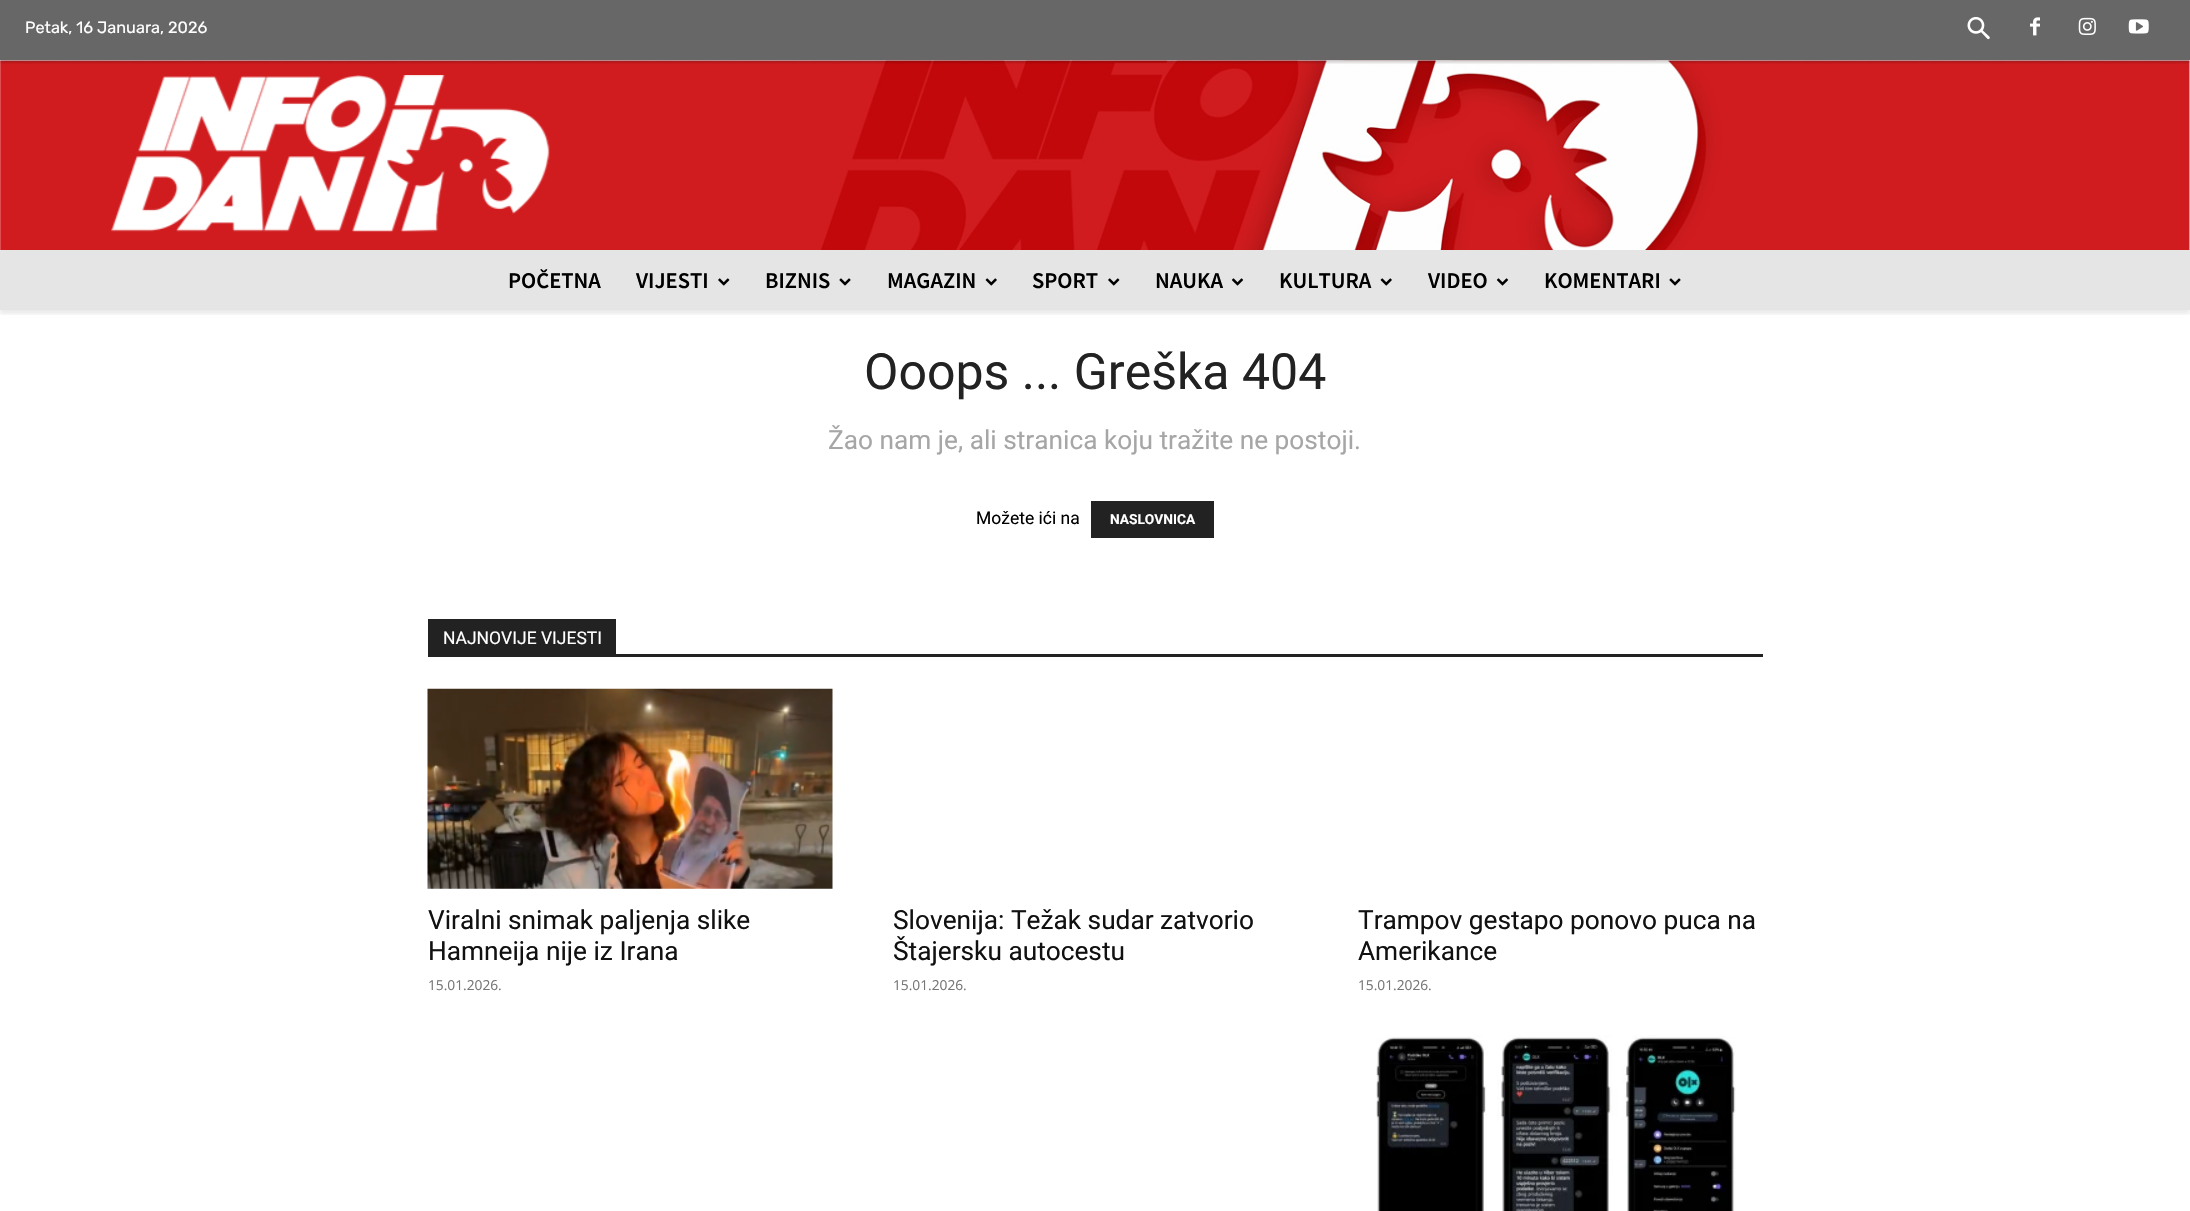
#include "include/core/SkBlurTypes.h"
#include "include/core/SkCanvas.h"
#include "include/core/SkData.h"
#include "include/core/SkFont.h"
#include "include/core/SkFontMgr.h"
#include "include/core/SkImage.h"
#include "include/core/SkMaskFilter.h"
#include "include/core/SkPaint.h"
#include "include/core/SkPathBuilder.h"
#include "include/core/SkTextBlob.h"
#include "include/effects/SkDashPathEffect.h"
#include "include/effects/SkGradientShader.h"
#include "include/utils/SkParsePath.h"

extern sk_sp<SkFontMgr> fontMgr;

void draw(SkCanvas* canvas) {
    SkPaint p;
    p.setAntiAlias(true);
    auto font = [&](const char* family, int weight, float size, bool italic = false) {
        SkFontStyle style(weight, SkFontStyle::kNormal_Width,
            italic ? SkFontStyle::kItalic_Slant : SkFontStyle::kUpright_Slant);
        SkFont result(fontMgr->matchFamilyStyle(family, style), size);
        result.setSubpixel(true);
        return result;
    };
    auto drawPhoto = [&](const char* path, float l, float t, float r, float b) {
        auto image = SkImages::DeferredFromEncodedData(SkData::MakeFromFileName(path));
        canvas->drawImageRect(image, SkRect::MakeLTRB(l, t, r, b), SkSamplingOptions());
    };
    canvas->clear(0xFFFFFFFF);
    p.setColor(0xFF676767);
    canvas->drawRect(SkRect::MakeLTRB(0, 0, 2190, 60), p);
    drawPhoto("media/2.png", 2030, 17, 2040, 36);
    drawPhoto("media/3.png", 2078, 17, 2096, 35);
    drawPhoto("media/4.png", 2128, 19, 2149, 34);
    drawPhoto("media/5.png", 0, 60, 2190, 250);
    canvas->save();
    canvas->clipRect(SkRect::MakeLTRB(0, 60, 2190, 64));
    p.setColor(0x260A0000);
    p.setMaskFilter(SkMaskFilter::MakeBlur(kNormal_SkBlurStyle, 1));
    canvas->drawRect(SkRect::MakeLTRB(0, 3, 2190, 63), p);
    p.setMaskFilter(nullptr);
    canvas->restore();
    auto font1 = font("Rubik", 400, 16.25f);
    p.setColor(0xFFFFFFFF);
    canvas->drawString("Petak, 16 Januara, 2026", 25, 33, font1, p);
    drawPhoto("media/1.png", 1967, 16, 1990, 40);
    drawPhoto("media/6.png", 111, 75, 550, 232);
    p.setColor(0xFFE5E5E5);
    canvas->drawRect(SkRect::MakeLTRB(0, 250, 2190, 310), p);
    canvas->save();
    canvas->clipRect(SkRect::MakeLTRB(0, 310, 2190, 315));
    p.setColor(0x14000000);
    p.setMaskFilter(SkMaskFilter::MakeBlur(kNormal_SkBlurStyle, 2));
    canvas->drawRect(SkRect::MakeLTRB(0, 254, 2190, 314), p);
    p.setMaskFilter(nullptr);
    canvas->restore();
    auto font2 = font("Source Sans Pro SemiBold", 600, 22.5f);
    p.setColor(0xFF000000);
    canvas->drawString("POČETNA", 508, 288, font2, p);
    canvas->drawString("VIJESTI", 636, 288, font2, p);
    drawPhoto("media/7.png", 718, 278, 730, 286);
    canvas->drawString("BIZNIS", 765, 288, font2, p);
    drawPhoto("media/8.png", 839, 278, 851, 286);
    canvas->drawString("MAGAZIN", 887, 288, font2, p);
    drawPhoto("media/9.png", 985, 278, 997, 286);
    canvas->drawString("SPORT", 1032, 288, font2, p);
    drawPhoto("media/7.png", 1108, 278, 1120, 286);
    canvas->drawString("NAUKA", 1155, 288, font2, p);
    drawPhoto("media/10.png", 1231, 278, 1244, 286);
    canvas->drawString("KULTURA", 1279, 288, font2, p);
    drawPhoto("media/9.png", 1380, 278, 1392, 286);
    canvas->drawString("VIDEO", 1428, 288, font2, p);
    drawPhoto("media/10.png", 1496, 278, 1509, 286);
    canvas->drawString("KOMENTARI", 1544, 288, font2, p);
    drawPhoto("media/8.png", 1669, 278, 1681, 286);
    auto font3 = font("Roboto", 400, 50);
    p.setColor(0xFF222222);
    canvas->drawString("Ooops ... Greška 404", 864, 389, font3, p);
    auto font4 = font("Roboto", 400, 26.25f);
    p.setColor(0xFFA6A6A6);
    canvas->drawString("Žao nam je, ali stranica koju tražite ne postoji.", 828, 449, font4, p);
    auto font5 = font("Roboto", 400, 17.5f);
    p.setColor(0xFF000000);
    canvas->drawString("Možete ići na", 976, 524, font5, p);
    p.setColor(0xFF222222);
    canvas->drawRect(SkRect::MakeLTRB(1091, 501, 1214, 538), p);
    auto font6 = font("Roboto", 700, 13.75f);
    p.setColor(0xFFFFFFFF);
    canvas->drawString("NASLOVNICA", 1110, 524, font6, p);
    p.setColor(0xFF222222);
    canvas->drawRect(SkRect::MakeLTRB(428, 654, 1763, 657), p);
    canvas->drawRect(SkRect::MakeLTRB(428, 619, 616, 654), p);
    p.setColor(0xFFFFFFFF);
    canvas->drawString("NAJNOVIJE VIJESTI", 443, 644, font5, p);
    drawPhoto("media/11.png", 427, 688, 833, 889);
    p.setColor(0xFF111111);
    canvas->drawString("Viralni snimak paljenja slike", 428, 929, font4, p);
    canvas->drawString("Hamneija nije iz Irana", 428, 960, font4, p);
    auto font7 = font("Open Sans", 400, 13.75f);
    p.setColor(0xFF767676);
    canvas->drawString("15.01.2026.", 428, 990, font7, p);
    p.setColor(0xFF111111);
    canvas->drawString("Slovenija: Težak sudar zatvorio", 893, 929, font4, p);
    canvas->drawString("Štajersku autocestu", 893, 960, font4, p);
    p.setColor(0xFF767676);
    canvas->drawString("15.01.2026.", 893, 990, font7, p);
    p.setColor(0xFF111111);
    canvas->drawString("Trampov gestapo ponovo puca na", 1358, 929, font4, p);
    canvas->drawString("Amerikance", 1358, 960, font4, p);
    p.setColor(0xFF767676);
    canvas->drawString("15.01.2026.", 1358, 990, font7, p);
    drawPhoto("media/12.png", 1376, 1035, 1736, 1211);
}
